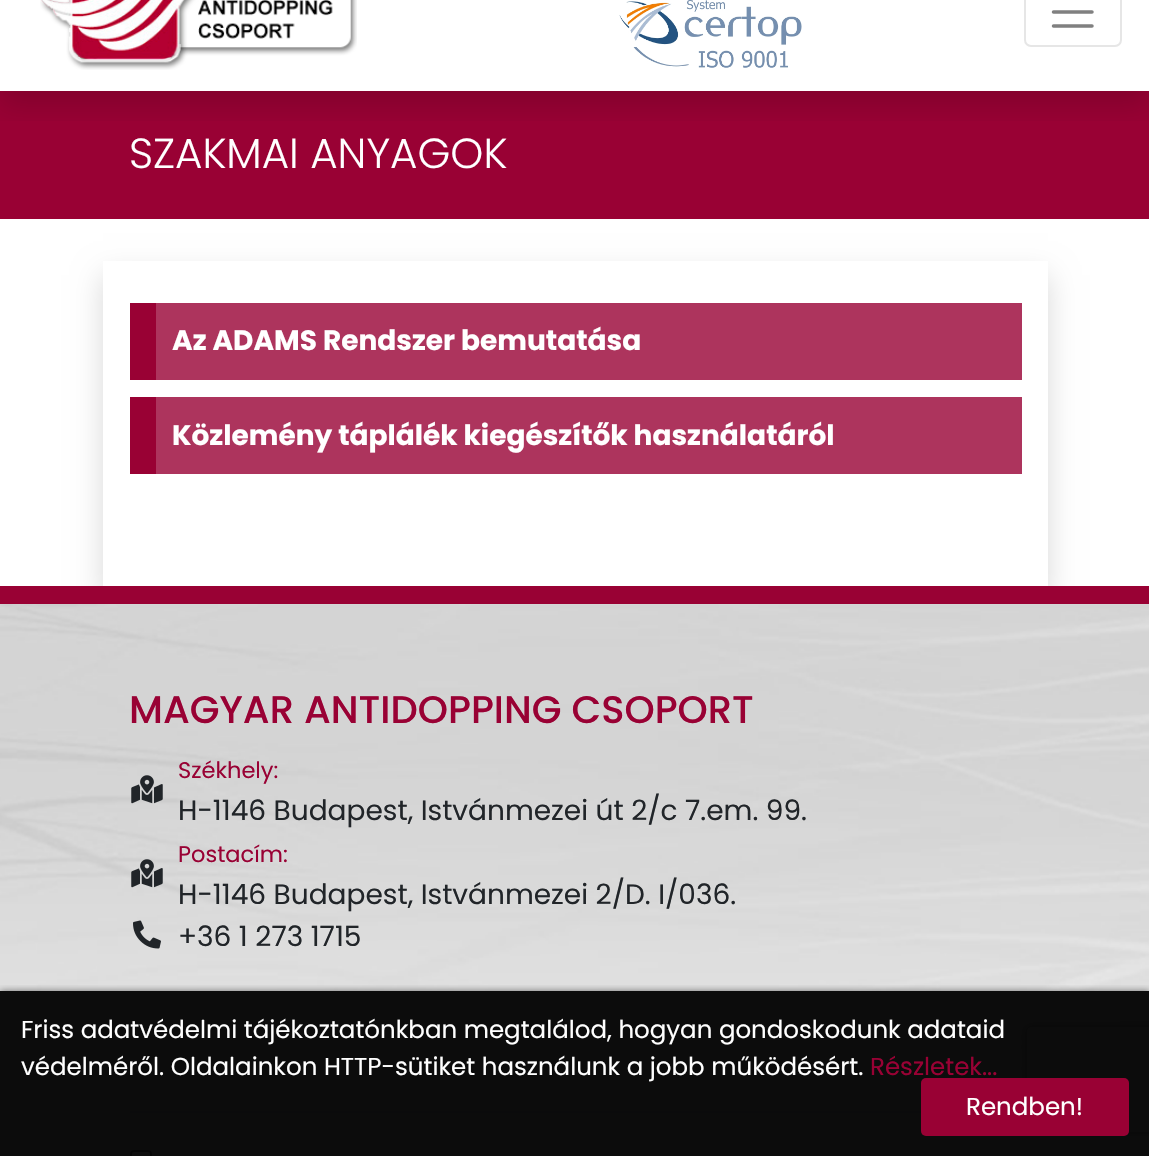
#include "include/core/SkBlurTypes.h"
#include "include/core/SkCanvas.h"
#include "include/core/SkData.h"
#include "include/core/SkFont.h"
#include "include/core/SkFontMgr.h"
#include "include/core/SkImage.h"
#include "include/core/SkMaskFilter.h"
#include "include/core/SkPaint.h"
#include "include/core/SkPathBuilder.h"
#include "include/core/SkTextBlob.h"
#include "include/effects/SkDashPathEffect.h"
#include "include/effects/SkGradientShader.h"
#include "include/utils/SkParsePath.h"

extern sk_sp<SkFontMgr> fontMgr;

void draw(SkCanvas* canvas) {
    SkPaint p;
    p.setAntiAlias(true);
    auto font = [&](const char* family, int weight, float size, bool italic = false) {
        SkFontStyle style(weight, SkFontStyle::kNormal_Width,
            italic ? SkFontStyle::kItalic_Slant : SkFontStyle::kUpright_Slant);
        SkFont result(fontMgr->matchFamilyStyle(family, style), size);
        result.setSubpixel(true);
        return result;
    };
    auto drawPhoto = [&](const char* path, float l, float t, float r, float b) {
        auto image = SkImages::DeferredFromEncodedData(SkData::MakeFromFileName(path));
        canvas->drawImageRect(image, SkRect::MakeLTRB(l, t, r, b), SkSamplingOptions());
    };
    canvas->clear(0xFFFFFFFF);
    p.setColor(0xFF990134);
    canvas->drawRect(SkRect::MakeLTRB(0, 91, 1149, 219), p);
    canvas->save();
    canvas->clipRect(SkRect::MakeLTRB(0, 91, 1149, 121));
    p.setColor(0x26000000);
    p.setMaskFilter(SkMaskFilter::MakeBlur(kNormal_SkBlurStyle, 14));
    canvas->drawRect(SkRect::MakeLTRB(0, -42, 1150, 105), p);
    p.setMaskFilter(nullptr);
    canvas->restore();
    drawPhoto("media/1.png", 40, 0, 357, 70);
    drawPhoto("media/2.png", 619, 0, 802, 68);
    p.setStyle(SkPaint::kStroke_Style);
    p.setStrokeWidth(2);
    p.setColor(0xFFE6E6E6);
    canvas->drawRoundRect(SkRect::MakeLTRB(1025, -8, 1121, 46), 6, 6, p);
    p.setStrokeWidth(3.5f);
    p.setStrokeCap(SkPaint::kRound_Cap);
    p.setColor(0xFF808080);
    canvas->drawPath(SkPathBuilder().moveTo(1053.5f, -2).lineTo(1092, -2).moveTo(1053.5f, 12).lineTo(1092, 12).moveTo(1053.5f, 26).lineTo(1092, 26).detach(), p);
    auto font1 = font("Poppins", 300, 42);
    p.setStyle(SkPaint::kFill_Style);
    p.setColor(0xFFFFFFFF);
    canvas->drawString("SZAKMAI ANYAGOK", 129, 168, font1, p);
    canvas->save();
    canvas->clipPath(SkPathBuilder(SkPathFillType::kEvenOdd).moveTo(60, 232).lineTo(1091, 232).lineTo(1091, 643).lineTo(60, 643).close().moveTo(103, 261).lineTo(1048, 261).lineTo(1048, 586).lineTo(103, 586).close().detach(), true);
    p.setColor(0x26000000);
    p.setMaskFilter(SkMaskFilter::MakeBlur(kNormal_SkBlurStyle, 14));
    canvas->drawRect(SkRect::MakeLTRB(103, 275, 1048, 600), p);
    p.setMaskFilter(nullptr);
    canvas->restore();
    p.setColor(0xFFAD345D);
    canvas->drawRect(SkRect::MakeLTRB(156, 303, 1022, 380), p);
    p.setColor(0xFF990134);
    canvas->drawRect(SkRect::MakeLTRB(130, 303, 156, 380), p);
    auto font2 = font("Poppins", 700, 28);
    p.setColor(0xFFFFFFFF);
    canvas->drawString("Az ADAMS Rendszer bemutatása", 172, 350, font2, p);
    p.setColor(0xFFAD345D);
    canvas->drawRect(SkRect::MakeLTRB(156, 397, 1022, 474), p);
    p.setColor(0xFF990134);
    canvas->drawRect(SkRect::MakeLTRB(130, 397, 156, 474), p);
    p.setColor(0xFFFFFFFF);
    canvas->drawString("Közlemény táplálék kiegészítők használatáról", 172, 445, font2, p);
    drawPhoto("media/3.png", 0, 604, 1149, 1156);
    p.setColor(0xFF990134);
    canvas->drawRect(SkRect::MakeLTRB(0, 586, 1149, 604), p);
    auto font3 = font("Poppins", 500, 38.5f);
    canvas->drawString("MAGYAR ANTIDOPPING CSOPORT", 129, 723, font3, p);
    drawPhoto("media/4.png", 131, 775, 163, 804);
    auto font4 = font("Poppins", 400, 22.5f);
    canvas->drawString("Székhely:", 178, 778, font4, p);
    auto font5 = font("Poppins", 400, 28);
    p.setColor(0xFF212529);
    canvas->drawString("H-1146 Budapest, Istvánmezei út 2/c 7.em. 99.", 178, 820, font5, p);
    drawPhoto("media/5.png", 131, 859, 163, 888);
    p.setColor(0xFF990134);
    canvas->drawString("Postacím:", 178, 862, font4, p);
    p.setColor(0xFF212529);
    canvas->drawString("H-1146 Budapest, Istvánmezei 2/D. I/036.", 178, 904, font5, p);
    drawPhoto("media/6.png", 133, 920, 161, 949);
    canvas->drawString("+36 1 273 1715", 178, 946, font5, p);
    p.setColor(0xFFCED4DA);
    canvas->drawRect(SkRect::MakeLTRB(130, 1111, 921, 1113), p);
    p.setColor(0xFFFFFFFF);
    canvas->drawRoundRect(SkRect::MakeLTRB(131, 1151, 151, 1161), 3, 3, p);
    p.setStyle(SkPaint::kStroke_Style);
    p.setStrokeWidth(2);
    p.setStrokeCap(SkPaint::kButt_Cap);
    p.setColor(0xFF767676);
    canvas->drawRoundRect(SkRect::MakeLTRB(131, 1151, 151, 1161), 3, 3, p);
    canvas->save();
    canvas->clipPath(SkPathBuilder(SkPathFillType::kEvenOdd).moveTo(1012, 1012).lineTo(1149, 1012).lineTo(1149, 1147).lineTo(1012, 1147).close().moveTo(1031, 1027).lineTo(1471, 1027).cubicTo(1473, 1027, 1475, 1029, 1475, 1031).lineTo(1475, 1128).cubicTo(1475, 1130, 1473, 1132, 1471, 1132).lineTo(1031, 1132).cubicTo(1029, 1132, 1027, 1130, 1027, 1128).lineTo(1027, 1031).cubicTo(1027, 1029, 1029, 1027, 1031, 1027).close().detach(), true);
    p.setStyle(SkPaint::kFill_Style);
    p.setColor(0xFF808080);
    p.setMaskFilter(SkMaskFilter::MakeBlur(kNormal_SkBlurStyle, 4.5f));
    canvas->drawRoundRect(SkRect::MakeLTRB(1027, 1027, 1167, 1132), 4, 4, p);
    p.setMaskFilter(nullptr);
    canvas->restore();
    canvas->save();
    canvas->clipRect(SkRect::MakeLTRB(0, 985, 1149, 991));
    p.setColor(0x80000000);
    p.setMaskFilter(SkMaskFilter::MakeBlur(kNormal_SkBlurStyle, 3.5f));
    canvas->drawRect(SkRect::MakeLTRB(0, 991, 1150, 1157), p);
    p.setMaskFilter(nullptr);
    canvas->restore();
    p.setColor(0xF2000000);
    canvas->drawRect(SkRect::MakeLTRB(0, 991, 1149, 1156), p);
    auto font6 = font("Poppins", 400, 24.5f);
    p.setColor(0xFFFFFFFF);
    canvas->drawString("Friss adatvédelmi tájékoztatónkban megtalálod, hogyan gondoskodunk adataid", 21, 1038, font6, p);
    canvas->drawString("védelméről. Oldalainkon HTTP-sütiket használunk a jobb működésért.", 21, 1075, font6, p);
    p.setColor(0xFF990134);
    canvas->drawString("Részletek...", 870, 1075, font6, p);
    canvas->drawRoundRect(SkRect::MakeLTRB(921, 1078, 1129, 1136), 5, 5, p);
    p.setColor(0xFFFFFFFF);
    canvas->drawString("Rendben!", 966, 1115, font6, p);
}
